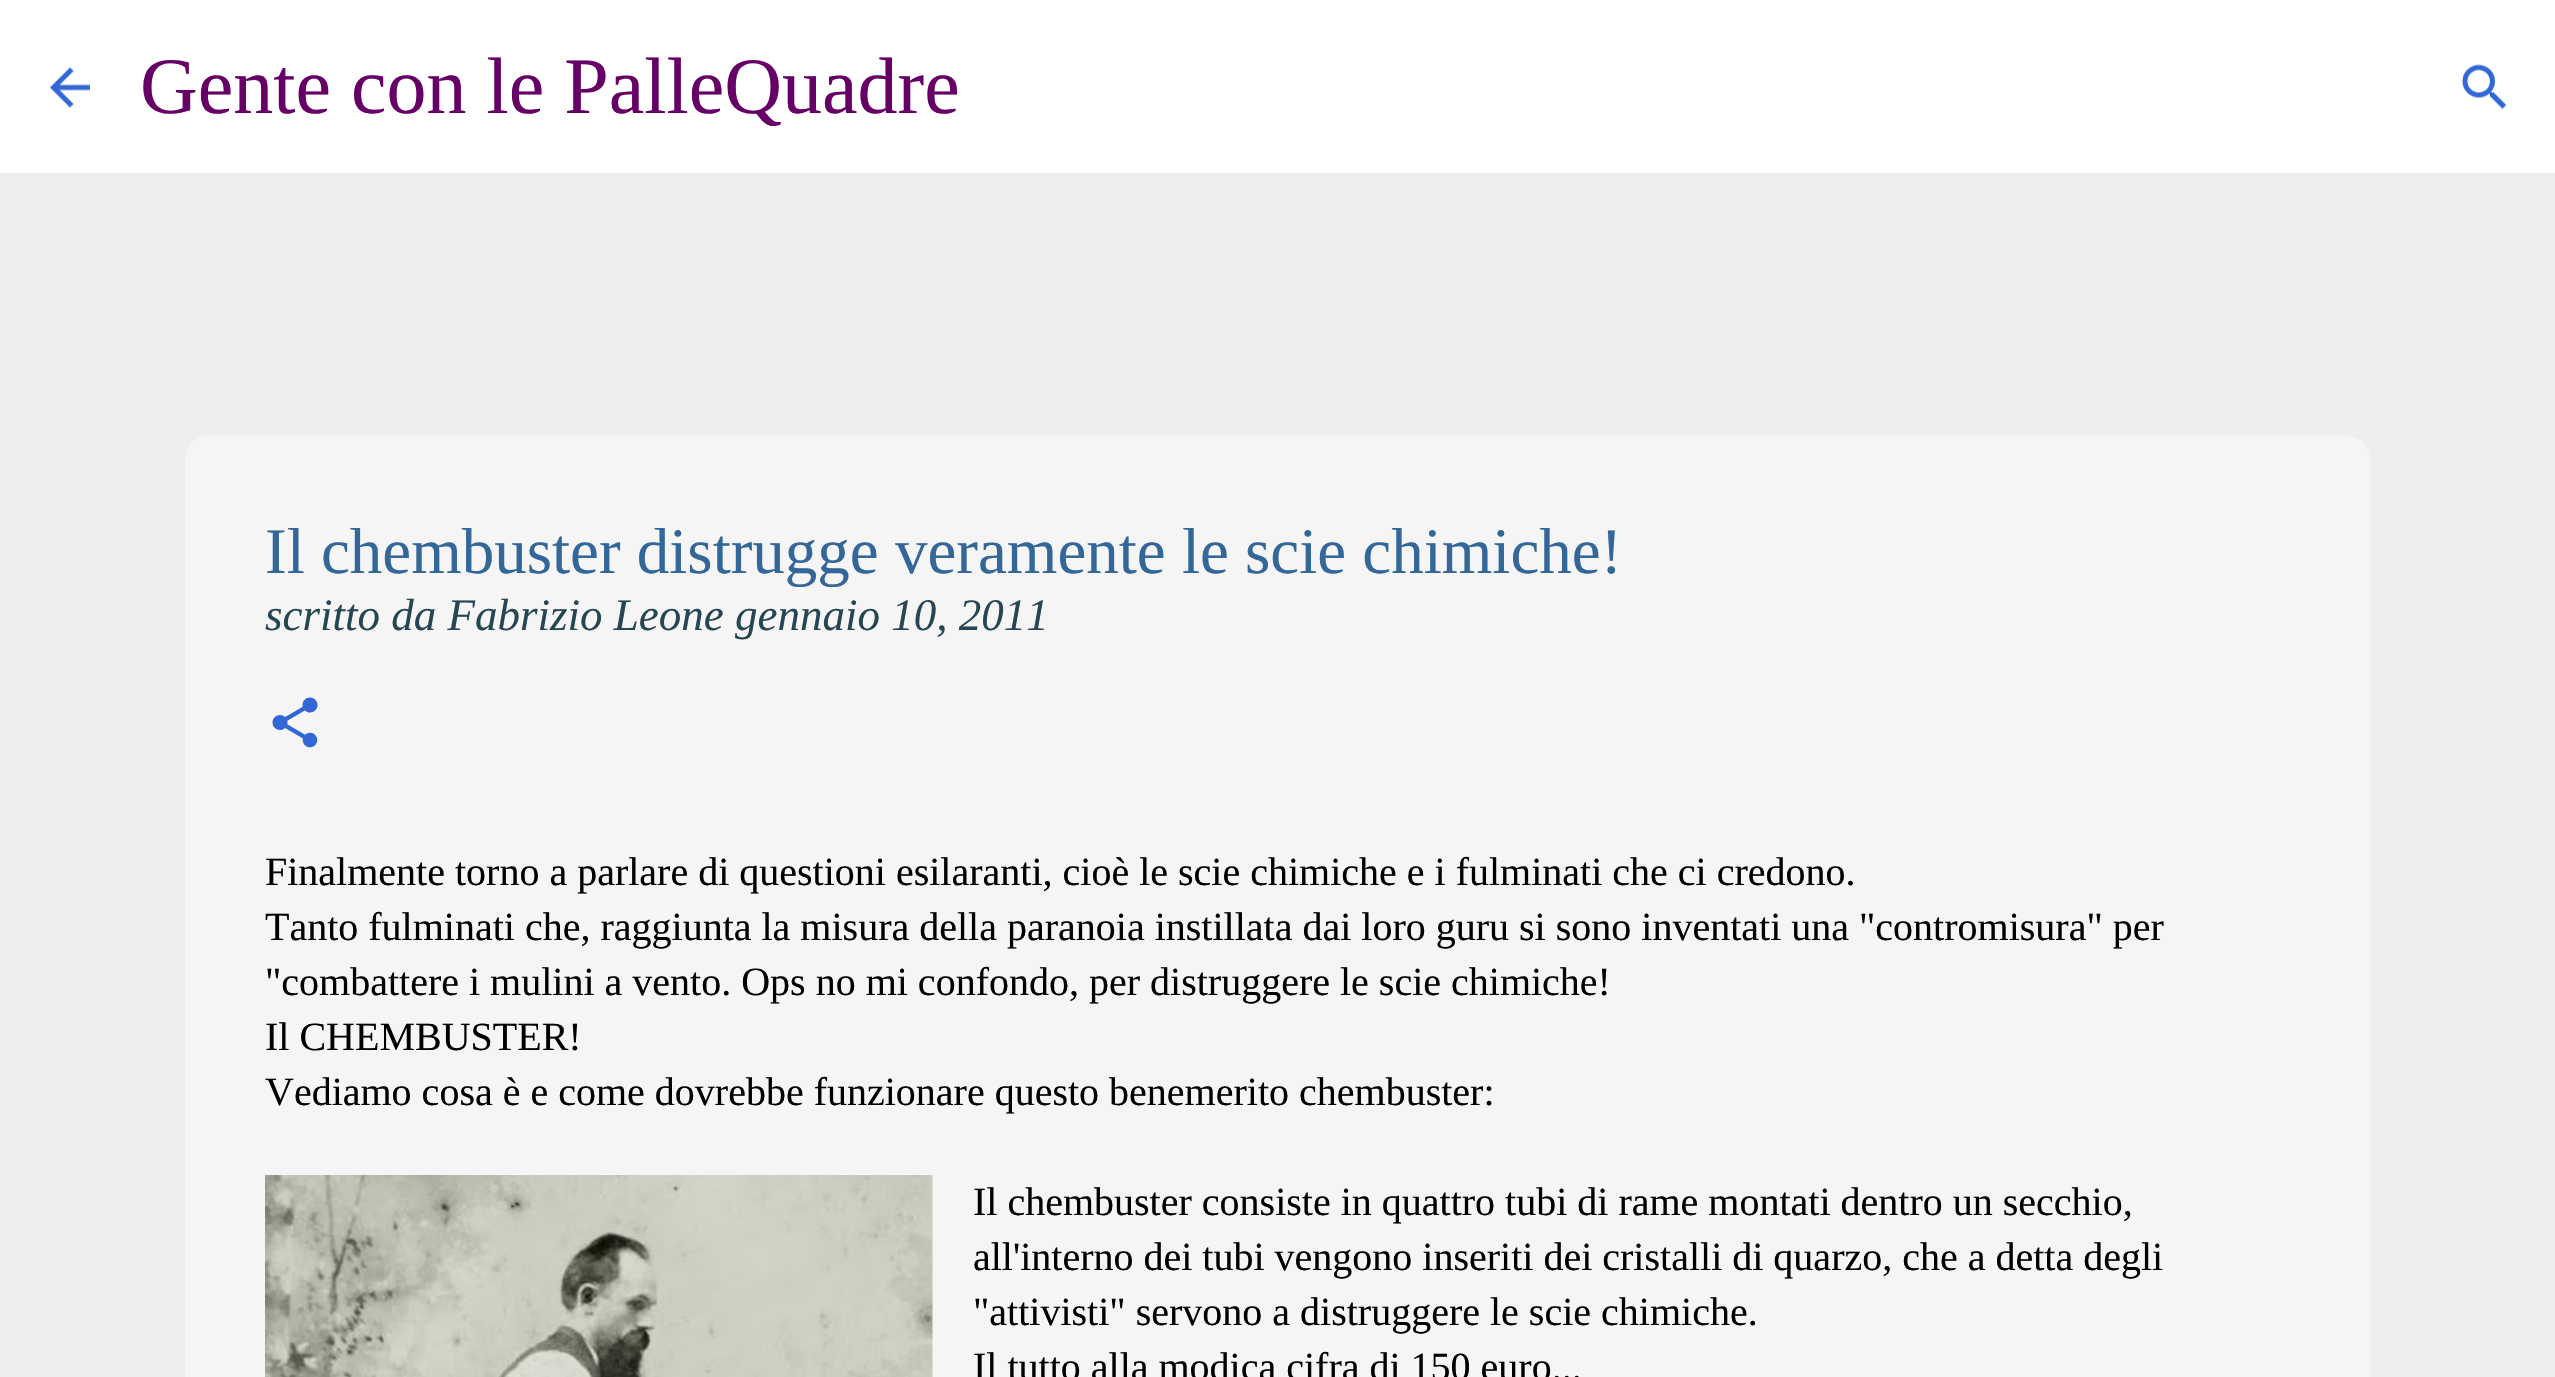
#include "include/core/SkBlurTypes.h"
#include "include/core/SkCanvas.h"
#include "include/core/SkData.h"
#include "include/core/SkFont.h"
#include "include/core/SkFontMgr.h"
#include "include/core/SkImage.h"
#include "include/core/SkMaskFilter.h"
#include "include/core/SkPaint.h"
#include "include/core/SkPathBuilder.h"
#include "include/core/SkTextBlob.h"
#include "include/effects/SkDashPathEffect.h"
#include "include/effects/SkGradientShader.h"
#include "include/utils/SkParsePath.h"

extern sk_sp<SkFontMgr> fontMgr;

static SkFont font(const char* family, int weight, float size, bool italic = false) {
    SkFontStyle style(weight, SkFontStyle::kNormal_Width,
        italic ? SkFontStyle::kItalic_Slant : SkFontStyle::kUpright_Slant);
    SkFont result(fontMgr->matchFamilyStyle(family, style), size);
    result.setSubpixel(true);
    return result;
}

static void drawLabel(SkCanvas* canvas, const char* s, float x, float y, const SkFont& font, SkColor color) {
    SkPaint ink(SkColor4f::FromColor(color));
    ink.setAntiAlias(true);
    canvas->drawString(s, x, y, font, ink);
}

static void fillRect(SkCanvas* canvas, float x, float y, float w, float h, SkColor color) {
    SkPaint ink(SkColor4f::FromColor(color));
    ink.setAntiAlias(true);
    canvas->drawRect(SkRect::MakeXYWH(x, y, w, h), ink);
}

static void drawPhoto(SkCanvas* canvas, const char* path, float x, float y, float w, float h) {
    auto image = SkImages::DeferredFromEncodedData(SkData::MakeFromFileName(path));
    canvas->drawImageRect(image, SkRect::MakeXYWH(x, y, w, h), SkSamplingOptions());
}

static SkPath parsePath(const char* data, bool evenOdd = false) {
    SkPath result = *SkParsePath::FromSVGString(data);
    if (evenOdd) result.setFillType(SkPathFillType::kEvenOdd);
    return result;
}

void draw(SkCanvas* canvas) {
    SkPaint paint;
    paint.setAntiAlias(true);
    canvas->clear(0xFFEEEEEE);
    fillRect(canvas, 0, 0, 2555, 173, 0xFFFFFFFF);
    drawPhoto(canvas, "assets/img1.png", 50, 67, 40, 41);
    SkFont font1 = font("Liberation Serif", 400, 80);
    drawLabel(canvas, "Gente con le PalleQuadre", 140, 113, font1, 0xFF660066);
    drawPhoto(canvas, "assets/img2.png", 2462, 64, 44, 46);
    paint.setColor(0xFFF5F5F5);
    canvas->drawPath(parsePath("M210 435H2345C2359 435 2370 446 2370 460V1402H185V460C185 446 196 435 210 435Z"), paint);
    SkFont font2 = font("Liberation Serif", 400, 65);
    drawLabel(canvas, "Il chembuster distrugge veramente le scie chimiche!", 265, 573, font2, 0xFF336699);
    SkFont font3 = font("Liberation Serif", 400, 45, true);
    drawLabel(canvas, "scritto da Fabrizio Leone gennaio 10, 2011", 265, 630, font3, 0xFF264653);
    drawPhoto(canvas, "assets/img3.png", 272, 697, 46, 51);
    SkFont font4 = font("Liberation Serif", 400, 40);
    drawLabel(canvas, "Finalmente torno a parlare di questioni esilaranti, cioè le scie chimiche e i fulminati che ci credono.", 265, 885, font4, 0xFF000000);
    drawLabel(canvas, "Tanto fulminati che, raggiunta la misura della paranoia instillata dai loro guru si sono inventati una \"contromisura\" per", 265, 940, font4, 0xFF000000);
    drawLabel(canvas, "\"combattere i mulini a vento. Ops no mi confondo, per distruggere le scie chimiche!", 265, 995, font4, 0xFF000000);
    drawLabel(canvas, "Il CHEMBUSTER!", 265, 1050, font4, 0xFF000000);
    drawLabel(canvas, "Vediamo cosa è e come dovrebbe funzionare questo benemerito chembuster:", 265, 1105, font4, 0xFF000000);
    drawPhoto(canvas, "assets/img4.png", 265, 1175, 668, 202);
    drawLabel(canvas, "Il chembuster consiste in quattro tubi di rame montati dentro un secchio,", 973, 1215, font4, 0xFF000000);
    drawLabel(canvas, "all'interno dei tubi vengono inseriti dei cristalli di quarzo, che a detta degli", 973, 1270, font4, 0xFF000000);
    drawLabel(canvas, "\"attivisti\" servono a distruggere le scie chimiche.", 973, 1325, font4, 0xFF000000);
    drawLabel(canvas, "Il tutto alla modica cifra di 150 euro...", 973, 1380, font4, 0xFF000000);
}
